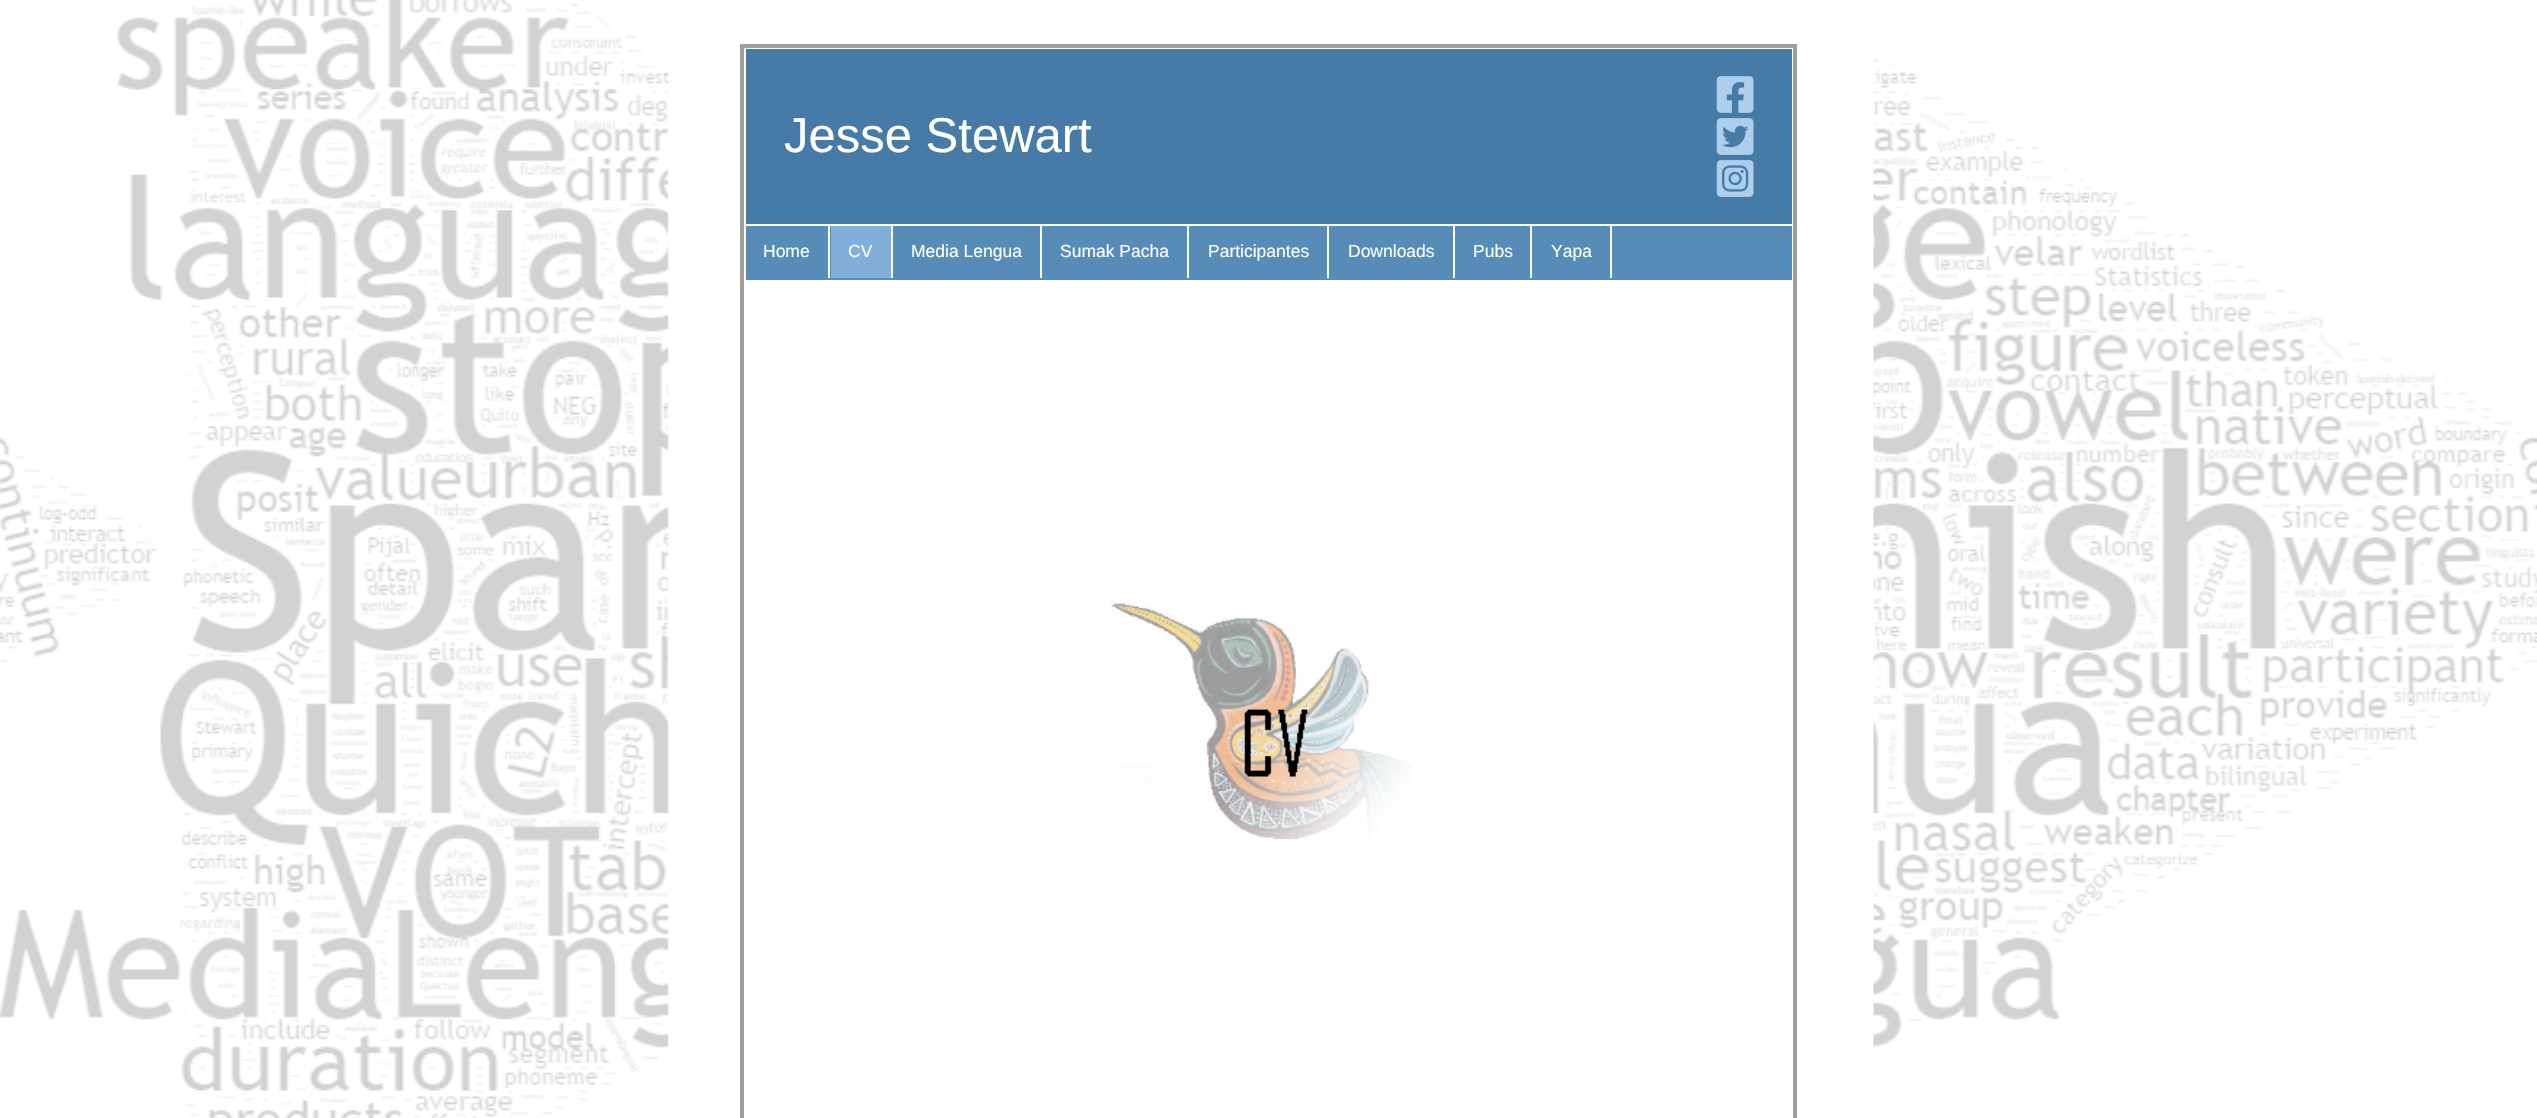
#include "include/core/SkBlurTypes.h"
#include "include/core/SkCanvas.h"
#include "include/core/SkData.h"
#include "include/core/SkFont.h"
#include "include/core/SkFontMgr.h"
#include "include/core/SkImage.h"
#include "include/core/SkMaskFilter.h"
#include "include/core/SkPaint.h"
#include "include/core/SkPathBuilder.h"
#include "include/core/SkTextBlob.h"
#include "include/effects/SkDashPathEffect.h"
#include "include/effects/SkGradientShader.h"
#include "include/utils/SkParsePath.h"

extern sk_sp<SkFontMgr> fontMgr;

static SkFont font(const char* family, int weight, float size, bool italic = false) {
    SkFontStyle style(weight, SkFontStyle::kNormal_Width,
        italic ? SkFontStyle::kItalic_Slant : SkFontStyle::kUpright_Slant);
    SkFont result(fontMgr->matchFamilyStyle(family, style), size);
    result.setSubpixel(true);
    return result;
}

static void drawLabel(SkCanvas* canvas, const char* s, float x, float y, const SkFont& font, SkColor color) {
    SkPaint ink(SkColor4f::FromColor(color));
    ink.setAntiAlias(true);
    canvas->drawString(s, x, y, font, ink);
}

static void fillRect(SkCanvas* canvas, float x, float y, float w, float h, SkColor color) {
    SkPaint ink(SkColor4f::FromColor(color));
    ink.setAntiAlias(true);
    canvas->drawRect(SkRect::MakeXYWH(x, y, w, h), ink);
}

static void drawPhoto(SkCanvas* canvas, const char* path, float x, float y, float w, float h) {
    auto image = SkImages::DeferredFromEncodedData(SkData::MakeFromFileName(path));
    canvas->drawImageRect(image, SkRect::MakeXYWH(x, y, w, h), SkSamplingOptions());
}

void draw(SkCanvas* canvas) {
    SkPaint paint;
    paint.setAntiAlias(true);
    canvas->clear(0xFFFFFFFF);
    drawPhoto(canvas, "assets/img1.png", 0, 0, 2537, 1118);
    paint.setStroke(true);
    paint.setStrokeWidth(4);
    paint.setColor(0xFFA0A0A0);
    canvas->drawRect(SkRect::MakeXYWH(742, 46, 1053, 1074), paint);
    fillRect(canvas, 746, 49, 1046, 175, 0xFF467AA7);
    SkFont font1 = font("Liberation Sans", 400, 49);
    drawLabel(canvas, "Jesse Stewart", 784, 152, font1, 0xFFFFFEFE);
    drawPhoto(canvas, "assets/img2.png", 1716, 76, 38, 37);
    drawPhoto(canvas, "assets/img3.png", 1716, 118, 38, 37);
    drawPhoto(canvas, "assets/img4.png", 1716, 160, 38, 37);
    fillRect(canvas, 746, 226, 1046, 54, 0xFF578BB8);
    fillRect(canvas, 828, 226, 2, 52, 0xFFFFFFFF);
    SkFont font2 = font("Liberation Sans", 400, 17.5f);
    drawLabel(canvas, "Home", 763, 257, font2, 0xFFFFFEFE);
    fillRect(canvas, 831, 226, 60, 52, 0xFF80B0DA);
    fillRect(canvas, 891, 226, 2, 52, 0xFFFFFFFF);
    drawLabel(canvas, "CV", 848, 257, font2, 0xFFFFFEFE);
    fillRect(canvas, 1040, 226, 2, 52, 0xFFFFFFFF);
    drawLabel(canvas, "Media Lengua", 911, 257, font2, 0xFFFFFEFE);
    fillRect(canvas, 1187, 226, 2, 52, 0xFFFFFFFF);
    drawLabel(canvas, "Sumak Pacha", 1060, 257, font2, 0xFFFFFEFE);
    fillRect(canvas, 1327, 226, 2, 52, 0xFFFFFFFF);
    drawLabel(canvas, "Participantes", 1208, 257, font2, 0xFFFFFEFE);
    fillRect(canvas, 1453, 226, 2, 52, 0xFFFFFFFF);
    drawLabel(canvas, "Downloads", 1348, 257, font2, 0xFFFFFEFE);
    fillRect(canvas, 1530, 226, 2, 52, 0xFFFFFFFF);
    drawLabel(canvas, "Pubs", 1473, 257, font2, 0xFFFFFEFE);
    fillRect(canvas, 1610, 226, 2, 52, 0xFFFFFFFF);
    drawLabel(canvas, "Yapa", 1551, 257, font2, 0xFFFFFEFE);
    drawPhoto(canvas, "assets/img5.png", 1111, 603, 303, 237);
}
